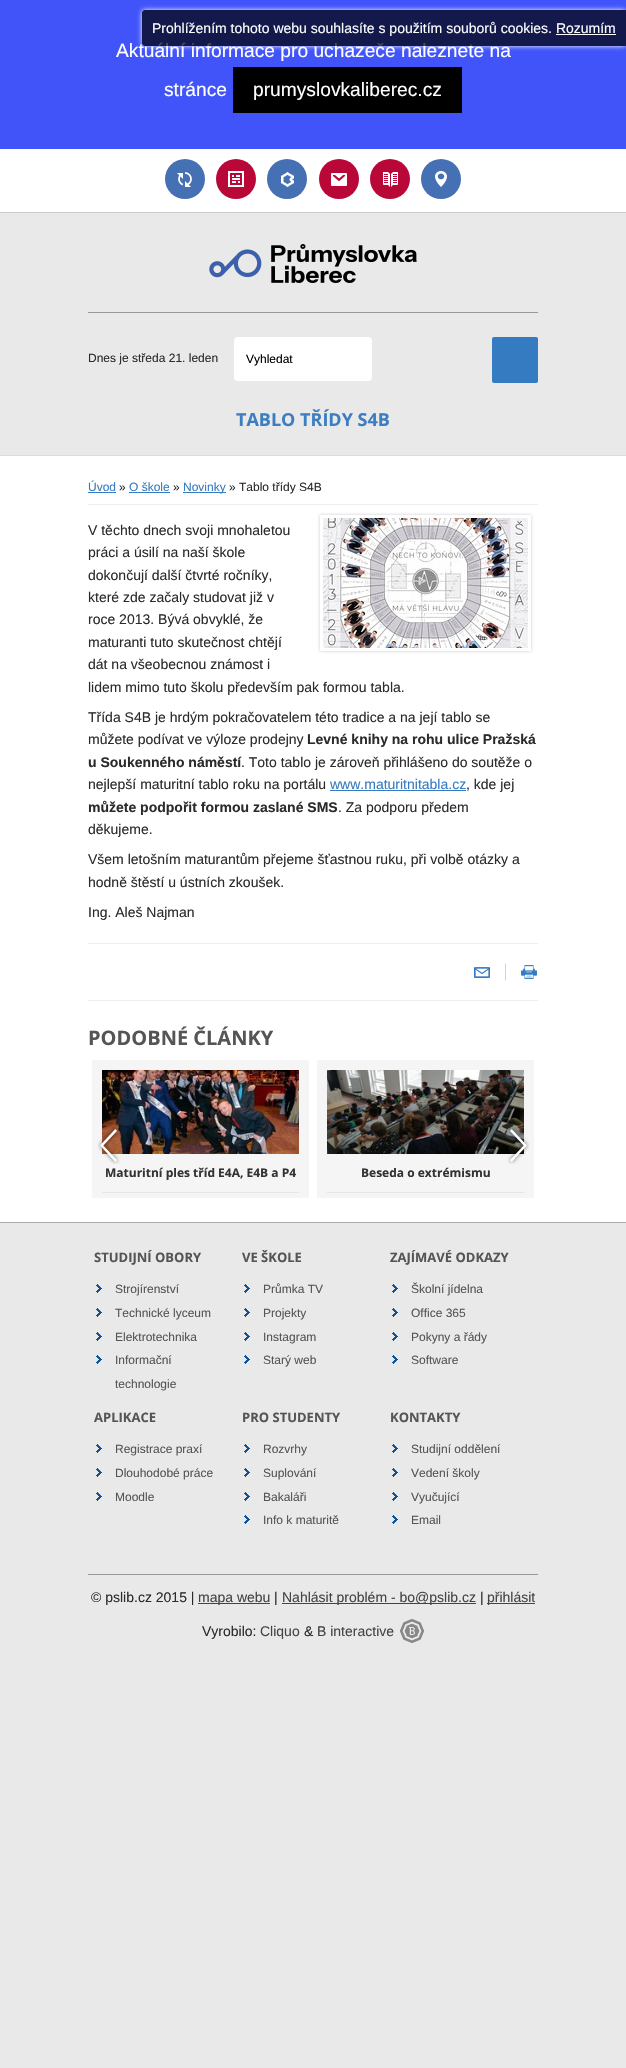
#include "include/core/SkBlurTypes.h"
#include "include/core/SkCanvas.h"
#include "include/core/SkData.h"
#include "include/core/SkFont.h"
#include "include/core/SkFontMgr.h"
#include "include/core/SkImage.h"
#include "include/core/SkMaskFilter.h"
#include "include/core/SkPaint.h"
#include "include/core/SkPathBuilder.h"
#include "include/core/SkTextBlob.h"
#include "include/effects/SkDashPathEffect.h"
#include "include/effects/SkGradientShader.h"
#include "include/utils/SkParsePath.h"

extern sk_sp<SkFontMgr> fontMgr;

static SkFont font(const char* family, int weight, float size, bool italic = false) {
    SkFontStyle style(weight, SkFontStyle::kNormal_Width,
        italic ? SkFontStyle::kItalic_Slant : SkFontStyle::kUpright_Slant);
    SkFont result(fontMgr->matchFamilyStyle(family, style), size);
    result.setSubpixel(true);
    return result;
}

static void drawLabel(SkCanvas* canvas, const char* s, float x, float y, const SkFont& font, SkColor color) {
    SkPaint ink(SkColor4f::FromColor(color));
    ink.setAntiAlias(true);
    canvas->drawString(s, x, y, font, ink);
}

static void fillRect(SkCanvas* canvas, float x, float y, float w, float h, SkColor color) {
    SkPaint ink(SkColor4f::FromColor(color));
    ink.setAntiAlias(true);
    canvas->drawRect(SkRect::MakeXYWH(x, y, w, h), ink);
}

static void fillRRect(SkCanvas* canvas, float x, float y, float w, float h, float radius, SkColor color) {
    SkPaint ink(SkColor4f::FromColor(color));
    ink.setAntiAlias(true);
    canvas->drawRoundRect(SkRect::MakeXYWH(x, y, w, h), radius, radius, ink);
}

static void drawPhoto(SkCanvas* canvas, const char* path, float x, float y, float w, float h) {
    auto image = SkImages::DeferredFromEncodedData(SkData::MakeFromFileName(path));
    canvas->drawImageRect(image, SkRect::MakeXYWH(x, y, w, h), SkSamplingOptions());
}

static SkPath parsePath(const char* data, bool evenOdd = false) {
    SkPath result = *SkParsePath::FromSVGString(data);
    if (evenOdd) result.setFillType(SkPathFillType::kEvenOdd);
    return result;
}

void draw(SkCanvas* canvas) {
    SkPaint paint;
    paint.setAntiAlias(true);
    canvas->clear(0xFFE9E9E9);
    fillRect(canvas, 0, 0, 626, 149, 0xFF4154FA);
    canvas->save();
    canvas->clipPath(parsePath("M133 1H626V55H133ZM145 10H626V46H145C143.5 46 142 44.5 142 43V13C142 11.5 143.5 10 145 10Z", true), true);
    paint.setColor(0xFFFFFFFF);
    paint.setMaskFilter(SkMaskFilter::MakeBlur(kNormal_SkBlurStyle, 2.5f));
    canvas->drawRoundRect(SkRect::MakeXYWH(142, 10, 484, 36), 3, 3, paint);
    paint.setMaskFilter(nullptr);
    canvas->restore();
    SkFont font1 = font("Liberation Sans", 400, 19.2f);
    drawLabel(canvas, "Aktuální informace pro uchazeče naleznete na", 116, 57, font1, 0xFFFFFFFF);
    paint.setColor(0xB3000000);
    canvas->drawPath(parsePath("M145 10H626V46H145C143.5 46 142 44.5 142 43V13C142 11.5 143.5 10 145 10Z"), paint);
    SkFont font2 = font("Liberation Sans", 400, 14);
    drawLabel(canvas, "Prohlížením tohoto webu souhlasíte s použitím souborů cookies. Rozumím", 152, 33, font2, 0xFFFFFFFF);
    fillRect(canvas, 556, 34, 60, 1, 0xFFFFFFFF);
    fillRect(canvas, 0, 455, 626, 1, 0xFFDDDDDD);
    drawLabel(canvas, "stránce", 164, 96, font1, 0xFFFFFFFF);
    fillRect(canvas, 233, 67, 229, 46, 0xFF000000);
    drawLabel(canvas, "prumyslovkaliberec.cz", 253, 96, font1, 0xFFFFFFFF);
    fillRect(canvas, 0, 149, 626, 63, 0xFFFFFFFF);
    fillRect(canvas, 0, 212, 626, 1, 0xFFCCCCCC);
    paint.setColor(0xFF4570B4);
    canvas->drawCircle(185, 179, 20, paint);
    drawPhoto(canvas, "assets/img1.png", 177, 172, 15, 15);
    paint.setColor(0xFFB90737);
    canvas->drawCircle(236, 179, 20, paint);
    drawPhoto(canvas, "assets/img2.png", 228, 171, 16, 16);
    paint.setColor(0xFF4570B4);
    canvas->drawCircle(287, 179, 20, paint);
    drawPhoto(canvas, "assets/img3.png", 281, 172, 13, 15);
    paint.setColor(0xFFB90737);
    canvas->drawCircle(339, 179, 20, paint);
    drawPhoto(canvas, "assets/img4.png", 331, 173, 16, 13);
    canvas->drawCircle(390, 179, 20, paint);
    drawPhoto(canvas, "assets/img5.png", 383, 172, 15, 15);
    paint.setColor(0xFF4570B4);
    canvas->drawCircle(441, 179, 20, paint);
    drawPhoto(canvas, "assets/img6.png", 435, 171, 12, 16);
    fillRect(canvas, 88, 312, 450, 1, 0xFF999999);
    drawPhoto(canvas, "assets/img7.png", 209, 244, 208, 39);
    SkFont font3 = font("Liberation Sans", 400, 12);
    drawLabel(canvas, "Dnes je středa 21. leden", 88, 362, font3, 0xFF2B2B2B);
    fillRRect(canvas, 234, 337, 138, 44, 4, 0xFFFFFFFF);
    drawLabel(canvas, "Vyhledat", 246, 363, font3, 0xFF000000);
    fillRRect(canvas, 492, 337, 46, 46, 2, 0xFF357BC2);
    SkFont font4 = font("Open Sans", 700, 18);
    drawLabel(canvas, "TABLO TŘÍDY S4B", 236, 426, font4, 0xFF3C7EC1);
    fillRect(canvas, 0, 456, 626, 766, 0xFFFFFFFF);
    fillRect(canvas, 0, 1222, 626, 1, 0xFFAAAAAA);
    fillRect(canvas, 88, 504, 450, 1, 0xFFEEEEEE);
    drawLabel(canvas, "Úvod", 88, 491, font3, 0xFF357BC2);
    fillRect(canvas, 88, 492, 28, 1, 0xFF357BC2);
    drawLabel(canvas, "»", 119, 491, font3, 0xFF2B2B2B);
    drawLabel(canvas, "O škole", 129, 491, font3, 0xFF357BC2);
    fillRect(canvas, 129, 492, 41, 1, 0xFF357BC2);
    drawLabel(canvas, "»", 173, 491, font3, 0xFF2B2B2B);
    fillRect(canvas, 183, 492, 43, 1, 0xFF357BC2);
    drawLabel(canvas, "Novinky", 183, 491, font3, 0xFF357BC2);
    drawLabel(canvas, "» Tablo třídy S4B", 229, 491, font3, 0xFF2B2B2B);
    drawLabel(canvas, "V těchto dnech svoji mnohaletou", 88, 535, font2, 0xFF2B2B2B);
    drawLabel(canvas, "práci a úsilí na naší škole", 88, 557, font2, 0xFF2B2B2B);
    drawLabel(canvas, "dokončují další čtvrté ročníky,", 88, 580, font2, 0xFF2B2B2B);
    drawLabel(canvas, "které zde začaly studovat již v", 88, 602, font2, 0xFF2B2B2B);
    drawLabel(canvas, "roce 2013. Bývá obvyklé, že", 88, 624, font2, 0xFF2B2B2B);
    drawLabel(canvas, "maturanti tuto skutečnost chtějí", 88, 647, font2, 0xFF2B2B2B);
    drawLabel(canvas, "dát na všeobecnou známost i", 88, 669, font2, 0xFF2B2B2B);
    drawLabel(canvas, "lidem mimo tuto školu především pak formou tabla.", 88, 692, font2, 0xFF2B2B2B);
    canvas->save();
    canvas->clipPath(parsePath("M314 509H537V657H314ZM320 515H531V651H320Z", true), true);
    paint.setColor(0xFFCCCCCC);
    paint.setMaskFilter(SkMaskFilter::MakeBlur(kNormal_SkBlurStyle, 1.5f));
    canvas->drawRect(SkRect::MakeXYWH(320, 515, 211, 136), paint);
    paint.setMaskFilter(nullptr);
    canvas->restore();
    drawPhoto(canvas, "assets/img8.png", 323, 518, 205, 130);
    drawLabel(canvas, "Třída S4B je hrdým pokračovatelem této tradice a na její tablo se", 88, 722, font2, 0xFF2B2B2B);
    drawLabel(canvas, "můžete podívat ve výloze prodejny", 88, 744, font2, 0xFF2B2B2B);
    SkFont font5 = font("Liberation Sans", 700, 14);
    drawLabel(canvas, "Levné knihy na rohu ulice Pražská", 307, 744, font5, 0xFF2B2B2B);
    drawLabel(canvas, "u Soukenného náměstí", 88, 767, font5, 0xFF2B2B2B);
    drawLabel(canvas, ". Toto tablo je zároveň přihlášeno do soutěže o", 241, 767, font2, 0xFF2B2B2B);
    drawLabel(canvas, "nejlepší maturitní tablo roku na portálu", 88, 789, font2, 0xFF2B2B2B);
    drawLabel(canvas, "www.maturitnitabla.cz", 330, 789, font2, 0xFF357BC2);
    fillRect(canvas, 330, 790, 136, 1, 0xFF357BC2);
    drawLabel(canvas, ", kde jej", 466, 789, font2, 0xFF2B2B2B);
    drawLabel(canvas, "můžete podpořit formou zaslané SMS", 88, 812, font5, 0xFF2B2B2B);
    drawLabel(canvas, ". Za podporu předem", 338, 812, font2, 0xFF2B2B2B);
    drawLabel(canvas, "děkujeme.", 88, 834, font2, 0xFF2B2B2B);
    drawLabel(canvas, "Všem letošním maturantům přejeme šťastnou ruku, při volbě otázky a", 88, 864, font2, 0xFF2B2B2B);
    drawLabel(canvas, "hodně štěstí u ústních zkoušek.", 88, 887, font2, 0xFF2B2B2B);
    drawLabel(canvas, "Ing. Aleš Najman", 88, 917, font2, 0xFF2B2B2B);
    fillRect(canvas, 88, 943, 450, 1, 0xFFEEEEEE);
    fillRect(canvas, 88, 1000, 450, 1, 0xFFEEEEEE);
    drawPhoto(canvas, "assets/img9.png", 474, 967, 16, 11);
    drawPhoto(canvas, "assets/img10.png", 505, 963, 1, 18);
    drawPhoto(canvas, "assets/img11.png", 521, 965, 16, 14);
    SkFont font6 = font("Open Sans", 700, 20);
    drawLabel(canvas, "PODOBNÉ ČLÁNKY", 88, 1045, font6, 0xFF555555);
    fillRect(canvas, 92, 1060, 217, 138, 0xFFF5F5F5);
    drawPhoto(canvas, "assets/img14.png", 102, 1070, 197, 84);
    drawPhoto(canvas, "assets/img12.png", 97, 1127, 23, 37);
    fillRect(canvas, 317, 1060, 217, 138, 0xFFF5F5F5);
    drawPhoto(canvas, "assets/img15.png", 327, 1070, 197, 84);
    drawPhoto(canvas, "assets/img13.png", 507, 1127, 23, 37);
    SkFont font7 = font("Open Sans", 700, 12);
    drawLabel(canvas, "Maturitní ples tříd E4A, E4B a P4", 105, 1177, font7, 0xFF333333);
    fillRect(canvas, 102, 1192, 197, 1, 0xFFE6E6E6);
    drawLabel(canvas, "Beseda o extrémismu", 361, 1177, font7, 0xFF333333);
    fillRect(canvas, 327, 1192, 197, 1, 0xFFE6E6E6);
    SkFont font8 = font("Open Sans", 700, 13);
    drawLabel(canvas, "STUDIJNÍ OBORY", 94, 1262, font8, 0xFF555555);
    drawPhoto(canvas, "assets/img16.png", 96, 1284, 6, 9);
    drawLabel(canvas, "Strojírenství", 115, 1293, font3, 0xFF555555);
    drawPhoto(canvas, "assets/img16.png", 96, 1308, 6, 9);
    drawLabel(canvas, "Technické lyceum", 115, 1317, font3, 0xFF555555);
    drawPhoto(canvas, "assets/img16.png", 96, 1332, 6, 9);
    drawLabel(canvas, "Elektrotechnika", 115, 1341, font3, 0xFF555555);
    drawPhoto(canvas, "assets/img16.png", 96, 1355, 6, 9);
    drawLabel(canvas, "Informační", 115, 1364, font3, 0xFF555555);
    drawLabel(canvas, "technologie", 115, 1388, font3, 0xFF555555);
    drawLabel(canvas, "VE ŠKOLE", 242, 1262, font8, 0xFF555555);
    drawPhoto(canvas, "assets/img16.png", 244, 1284, 6, 9);
    drawLabel(canvas, "Průmka TV", 263, 1293, font3, 0xFF555555);
    drawPhoto(canvas, "assets/img16.png", 244, 1308, 6, 9);
    drawLabel(canvas, "Projekty", 263, 1317, font3, 0xFF555555);
    drawPhoto(canvas, "assets/img16.png", 244, 1332, 6, 9);
    drawLabel(canvas, "Instagram", 263, 1341, font3, 0xFF555555);
    drawPhoto(canvas, "assets/img16.png", 244, 1355, 6, 9);
    drawLabel(canvas, "Starý web", 263, 1364, font3, 0xFF555555);
    drawLabel(canvas, "ZAJÍMAVÉ ODKAZY", 390, 1262, font8, 0xFF555555);
    drawPhoto(canvas, "assets/img16.png", 392, 1284, 6, 9);
    drawLabel(canvas, "Školní jídelna", 411, 1293, font3, 0xFF555555);
    drawPhoto(canvas, "assets/img16.png", 392, 1308, 6, 9);
    drawLabel(canvas, "Office 365", 411, 1317, font3, 0xFF555555);
    drawPhoto(canvas, "assets/img16.png", 392, 1332, 6, 9);
    drawLabel(canvas, "Pokyny a řády", 411, 1341, font3, 0xFF555555);
    drawPhoto(canvas, "assets/img16.png", 392, 1355, 6, 9);
    drawLabel(canvas, "Software", 411, 1364, font3, 0xFF555555);
    drawLabel(canvas, "APLIKACE", 94, 1422, font8, 0xFF555555);
    drawPhoto(canvas, "assets/img16.png", 96, 1444, 6, 9);
    drawLabel(canvas, "Registrace praxí", 115, 1453, font3, 0xFF555555);
    drawPhoto(canvas, "assets/img16.png", 96, 1468, 6, 9);
    drawLabel(canvas, "Dlouhodobé práce", 115, 1477, font3, 0xFF555555);
    drawPhoto(canvas, "assets/img16.png", 96, 1492, 6, 9);
    drawLabel(canvas, "Moodle", 115, 1501, font3, 0xFF555555);
    drawLabel(canvas, "PRO STUDENTY", 242, 1422, font8, 0xFF555555);
    drawPhoto(canvas, "assets/img16.png", 244, 1444, 6, 9);
    drawLabel(canvas, "Rozvrhy", 263, 1453, font3, 0xFF555555);
    drawPhoto(canvas, "assets/img16.png", 244, 1468, 6, 9);
    drawLabel(canvas, "Suplování", 263, 1477, font3, 0xFF555555);
    drawPhoto(canvas, "assets/img16.png", 244, 1492, 6, 9);
    drawLabel(canvas, "Bakaláři", 263, 1501, font3, 0xFF555555);
    drawPhoto(canvas, "assets/img16.png", 244, 1515, 6, 9);
    drawLabel(canvas, "Info k maturitě", 263, 1524, font3, 0xFF555555);
    drawLabel(canvas, "KONTAKTY", 390, 1422, font8, 0xFF555555);
    drawPhoto(canvas, "assets/img16.png", 392, 1444, 6, 9);
    drawLabel(canvas, "Studijní oddělení", 411, 1453, font3, 0xFF555555);
    drawPhoto(canvas, "assets/img16.png", 392, 1468, 6, 9);
    drawLabel(canvas, "Vedení školy", 411, 1477, font3, 0xFF555555);
    drawPhoto(canvas, "assets/img16.png", 392, 1492, 6, 9);
    drawLabel(canvas, "Vyučující", 411, 1501, font3, 0xFF555555);
    drawPhoto(canvas, "assets/img16.png", 392, 1515, 6, 9);
    drawLabel(canvas, "Email", 411, 1524, font3, 0xFF555555);
    fillRect(canvas, 88, 1574, 450, 1, 0xFF999999);
    drawLabel(canvas, "© pslib.cz 2015 |", 91, 1602, font2, 0xFF2B2B2B);
    fillRect(canvas, 198, 1603, 72, 1, 0xFF444444);
    drawLabel(canvas, "mapa webu", 198, 1602, font2, 0xFF444444);
    drawLabel(canvas, "|", 274, 1602, font2, 0xFF2B2B2B);
    fillRect(canvas, 282, 1603, 194, 1, 0xFF444444);
    drawLabel(canvas, "Nahlásit problém - bo@pslib.cz", 282, 1602, font2, 0xFF444444);
    drawLabel(canvas, "|", 480, 1602, font2, 0xFF2B2B2B);
    fillRect(canvas, 487, 1603, 48, 1, 0xFF444444);
    drawLabel(canvas, "přihlásit", 487, 1602, font2, 0xFF444444);
    drawLabel(canvas, "Vyrobilo:", 202, 1636, font2, 0xFF2B2B2B);
    drawLabel(canvas, "Cliquo", 260, 1636, font2, 0xFF444444);
    drawLabel(canvas, "&", 304, 1636, font2, 0xFF2B2B2B);
    drawPhoto(canvas, "assets/img17.png", 400, 1619, 24, 24);
    drawLabel(canvas, "B interactive", 317, 1636, font2, 0xFF444444);
}
